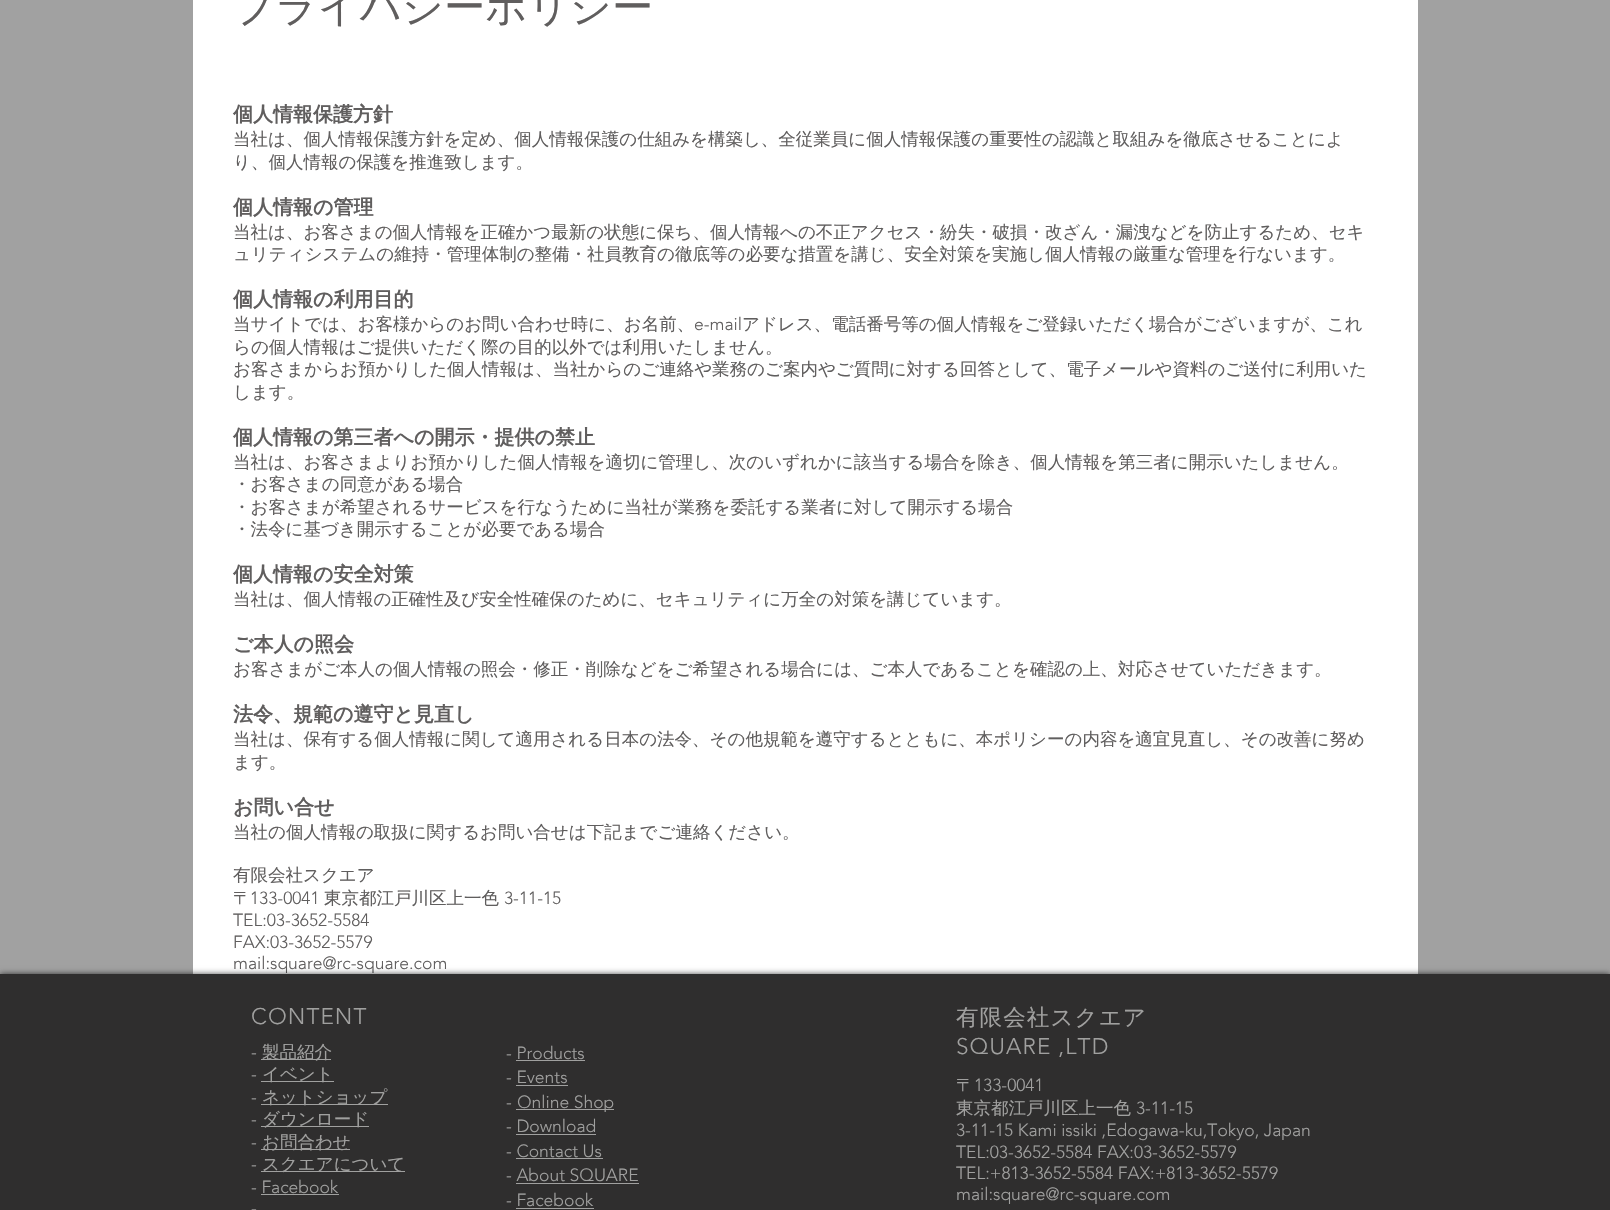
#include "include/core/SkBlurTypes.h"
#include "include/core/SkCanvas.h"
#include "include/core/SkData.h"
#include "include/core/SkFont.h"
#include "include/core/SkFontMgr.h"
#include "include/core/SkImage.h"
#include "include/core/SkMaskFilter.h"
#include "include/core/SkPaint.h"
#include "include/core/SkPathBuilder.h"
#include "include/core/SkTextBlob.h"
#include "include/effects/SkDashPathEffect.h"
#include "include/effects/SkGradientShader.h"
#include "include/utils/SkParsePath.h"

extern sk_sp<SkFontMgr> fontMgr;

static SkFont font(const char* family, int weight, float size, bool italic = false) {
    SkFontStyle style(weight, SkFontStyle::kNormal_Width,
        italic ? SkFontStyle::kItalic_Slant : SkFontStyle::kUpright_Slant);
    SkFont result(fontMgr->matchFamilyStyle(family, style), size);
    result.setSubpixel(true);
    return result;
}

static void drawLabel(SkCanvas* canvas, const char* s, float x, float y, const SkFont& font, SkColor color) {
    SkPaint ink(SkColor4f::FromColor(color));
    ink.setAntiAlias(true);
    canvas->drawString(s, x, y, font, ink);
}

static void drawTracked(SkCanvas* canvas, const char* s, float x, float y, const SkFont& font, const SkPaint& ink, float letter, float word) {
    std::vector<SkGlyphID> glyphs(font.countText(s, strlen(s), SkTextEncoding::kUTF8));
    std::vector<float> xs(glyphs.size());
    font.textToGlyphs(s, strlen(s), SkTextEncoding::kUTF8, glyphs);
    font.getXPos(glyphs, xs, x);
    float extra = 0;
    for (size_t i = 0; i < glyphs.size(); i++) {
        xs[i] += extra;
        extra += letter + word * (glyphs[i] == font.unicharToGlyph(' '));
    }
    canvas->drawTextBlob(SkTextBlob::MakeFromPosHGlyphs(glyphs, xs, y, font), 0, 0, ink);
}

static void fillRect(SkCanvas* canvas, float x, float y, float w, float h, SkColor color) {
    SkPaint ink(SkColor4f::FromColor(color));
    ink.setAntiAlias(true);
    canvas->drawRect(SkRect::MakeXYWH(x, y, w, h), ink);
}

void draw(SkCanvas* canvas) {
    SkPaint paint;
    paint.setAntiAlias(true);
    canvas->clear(0xFFA1A1A1);
    fillRect(canvas, 193, 0, 1225, 974, 0xFFFFFFFF);
    SkFont font1 = font("WenQuanYi Zen Hei", 500, 41.25f);
    drawLabel(canvas, "プライバシーポリシー", 233, 21, font1, 0xFF605E5E);
    SkFont font2 = font("WenQuanYi Zen Hei", 700, 20);
    drawLabel(canvas, "個人情報保護方針", 233, 121, font2, 0xFF605E5E);
    SkFont font3 = font("WenQuanYi Zen Hei", 500, 17.5f);
    drawLabel(canvas, "当社は、個人情報保護方針を定め、個人情報保護の仕組みを構築し、全従業員に個人情報保護の重要性の認識と取組みを徹底させることによ", 233, 145, font3, 0xFF605E5E);
    drawLabel(canvas, "り、個人情報の保護を推進致します。", 233, 168, font3, 0xFF605E5E);
    drawLabel(canvas, "個人情報の管理", 233, 214, font2, 0xFF605E5E);
    drawLabel(canvas, "当社は、お客さまの個人情報を正確かつ最新の状態に保ち、個人情報への不正アクセス・紛失・破損・改ざん・漏洩などを防止するため、セキ", 233, 238, font3, 0xFF605E5E);
    drawLabel(canvas, "ュリティシステムの維持・管理体制の整備・社員教育の徹底等の必要な措置を講じ、安全対策を実施し個人情報の厳重な管理を行ないます。", 233, 260, font3, 0xFF605E5E);
    drawLabel(canvas, "個人情報の利用目的", 233, 306, font2, 0xFF605E5E);
    drawLabel(canvas, "当サイトでは、お客様からのお問い合わせ時に、お名前、", 233, 330, font3, 0xFF605E5E);
    SkFont font4 = font("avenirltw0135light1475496", 300, 17.5f);
    drawLabel(canvas, "e-mail", 694, 330, font4, 0xFF605E5E);
    drawLabel(canvas, "アドレス、電話番号等の個人情報をご登録いただく場合がございますが、これ", 742, 330, font3, 0xFF605E5E);
    drawLabel(canvas, "らの個人情報はご提供いただく際の目的以外では利用いたしません。", 233, 353, font3, 0xFF605E5E);
    drawLabel(canvas, "お客さまからお預かりした個人情報は、当社からのご連絡や業務のご案内やご質問に対する回答として、電子メールや資料のご送付に利用いた", 233, 375, font3, 0xFF605E5E);
    drawLabel(canvas, "します。", 233, 398, font3, 0xFF605E5E);
    drawLabel(canvas, "個人情報の第三者への開示・提供の禁止", 233, 444, font2, 0xFF605E5E);
    drawLabel(canvas, "当社は、お客さまよりお預かりした個人情報を適切に管理し、次のいずれかに該当する場合を除き、個人情報を第三者に開示いたしません。", 233, 468, font3, 0xFF605E5E);
    drawLabel(canvas, "・お客さまの同意がある場合", 233, 490, font3, 0xFF605E5E);
    drawLabel(canvas, "・お客さまが希望されるサービスを行なうために当社が業務を委託する業者に対して開示する場合", 233, 513, font3, 0xFF605E5E);
    drawLabel(canvas, "・法令に基づき開示することが必要である場合", 233, 535, font3, 0xFF605E5E);
    drawLabel(canvas, "個人情報の安全対策", 233, 581, font2, 0xFF605E5E);
    drawLabel(canvas, "当社は、個人情報の正確性及び安全性確保のために、セキュリティに万全の対策を講じています。", 233, 605, font3, 0xFF605E5E);
    drawLabel(canvas, "ご本人の照会", 233, 651, font2, 0xFF605E5E);
    drawLabel(canvas, "お客さまがご本人の個人情報の照会・修正・削除などをご希望される場合には、ご本人であることを確認の上、対応させていただきます。", 233, 675, font3, 0xFF605E5E);
    drawLabel(canvas, "法令、規範の遵守と見直し", 233, 721, font2, 0xFF605E5E);
    drawLabel(canvas, "当社は、保有する個人情報に関して適用される日本の法令、その他規範を遵守するとともに、本ポリシーの内容を適宜見直し、その改善に努め", 233, 745, font3, 0xFF605E5E);
    drawLabel(canvas, "ます。", 233, 768, font3, 0xFF605E5E);
    drawLabel(canvas, "お問い合せ", 233, 814, font2, 0xFF605E5E);
    drawLabel(canvas, "当社の個人情報の取扱に関するお問い合せは下記までご連絡ください。", 233, 838, font3, 0xFF605E5E);
    drawLabel(canvas, "有限会社スクエア", 233, 881, font3, 0xFF605E5E);
    drawLabel(canvas, "〒", 233, 904, font3, 0xFF605E5E);
    drawLabel(canvas, "133-0041", 250, 904, font4, 0xFF605E5E);
    drawLabel(canvas, "東京都江戸川区上一色", 324, 904, font3, 0xFF605E5E);
    drawLabel(canvas, "3-11-15", 504, 904, font4, 0xFF605E5E);
    drawLabel(canvas, "TEL:03-3652-5584", 233, 926, font4, 0xFF605E5E);
    drawLabel(canvas, "FAX:03-3652-5579", 233, 948, font4, 0xFF605E5E);
    drawLabel(canvas, "mail:square@rc-square.com", 233, 969, font4, 0xFF605E5E);
    paint.setColor(0xB3000000);
    paint.setMaskFilter(SkMaskFilter::MakeBlur(kNormal_SkBlurStyle, 3));
    canvas->drawRect(SkRect::MakeXYWH(0, 974, 1610, 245), paint);
    paint.setMaskFilter(nullptr);
    fillRect(canvas, 0, 974, 1610, 236, 0xFF2F2E2E);
    SkFont font5 = font("avenirltw0135light1475496", 300, 22.5f);
    paint.setColor(0xFFA0A09F);
    drawTracked(canvas, "CONTENT", 251, 1024, font5, paint, 1.1f, 0);
    SkFont font6 = font("WenQuanYi Zen Hei", 500, 22.5f);
    drawTracked(canvas, "有限会社スクエア", 956, 1025, font6, paint, 1.1f, 0);
    drawTracked(canvas, "SQUARE ,LTD", 956, 1054, font5, paint, 1.1f, 0);
    drawLabel(canvas, "-", 251, 1058, font4, 0xFFA0A09F);
    fillRect(canvas, 261, 1059, 70, 1, 0xFFA0A09F);
    drawLabel(canvas, "製品紹介", 262, 1058, font3, 0xFFA0A09F);
    drawLabel(canvas, "-", 251, 1080, font4, 0xFFA0A09F);
    fillRect(canvas, 261, 1081, 73, 1, 0xFFA0A09F);
    drawLabel(canvas, "イベント", 262, 1080, font3, 0xFFA0A09F);
    drawLabel(canvas, "-", 251, 1103, font4, 0xFFA0A09F);
    fillRect(canvas, 261, 1104, 127, 1, 0xFFA0A09F);
    drawLabel(canvas, "ネットショップ", 262, 1103, font3, 0xFFA0A09F);
    drawLabel(canvas, "-", 251, 1125, font4, 0xFFA0A09F);
    fillRect(canvas, 261, 1126, 108, 1, 0xFFA0A09F);
    drawLabel(canvas, "ダウンロード", 262, 1125, font3, 0xFFA0A09F);
    drawLabel(canvas, "-", 251, 1148, font4, 0xFFA0A09F);
    fillRect(canvas, 261, 1149, 89, 1, 0xFFA0A09F);
    drawLabel(canvas, "お問合わせ", 262, 1148, font3, 0xFFA0A09F);
    drawLabel(canvas, "-", 251, 1170, font4, 0xFFA0A09F);
    fillRect(canvas, 261, 1171, 144, 1, 0xFFA0A09F);
    drawLabel(canvas, "スクエアについて", 262, 1170, font3, 0xFFA0A09F);
    drawLabel(canvas, "- Facebook", 251, 1193, font4, 0xFFA0A09F);
    fillRect(canvas, 261, 1194, 78, 1, 0xFFA0A09F);
    drawLabel(canvas, "-", 251, 1214, font4, 0xFFA0A09F);
    drawLabel(canvas, "- Products", 506, 1059, font4, 0xFFA0A09F);
    fillRect(canvas, 516, 1060, 69, 1, 0xFFA0A09F);
    drawLabel(canvas, "- Events", 506, 1083, font4, 0xFFA0A09F);
    fillRect(canvas, 516, 1085, 52, 1, 0xFFA0A09F);
    drawLabel(canvas, "-", 506, 1108, font4, 0xFFA0A09F);
    fillRect(canvas, 516, 1109, 98, 1, 0xFFA0A09F);
    drawLabel(canvas, "Online Shop", 517, 1108, font4, 0xFFA0A09F);
    drawLabel(canvas, "- Download", 506, 1132, font4, 0xFFA0A09F);
    fillRect(canvas, 516, 1134, 80, 1, 0xFFA0A09F);
    drawLabel(canvas, "- Contact Us", 506, 1157, font4, 0xFFA0A09F);
    fillRect(canvas, 516, 1158, 87, 1, 0xFFA0A09F);
    drawLabel(canvas, "- About SQUARE", 506, 1181, font4, 0xFFA0A09F);
    fillRect(canvas, 516, 1183, 123, 1, 0xFFA0A09F);
    drawLabel(canvas, "- Facebook", 506, 1206, font4, 0xFFA0A09F);
    fillRect(canvas, 516, 1208, 78, 1, 0xFFA0A09F);
    drawLabel(canvas, "〒", 956, 1091, font3, 0xFFA0A09F);
    drawLabel(canvas, "133-0041", 974, 1091, font4, 0xFFA0A09F);
    drawLabel(canvas, "東京都江戸川区上一色", 956, 1114, font3, 0xFFA0A09F);
    drawLabel(canvas, "3-11-15", 1136, 1114, font4, 0xFFA0A09F);
    drawLabel(canvas, "3-11-15 Kami issiki ,Edogawa-ku,Tokyo, Japan", 956, 1136, font4, 0xFFA0A09F);
    drawLabel(canvas, "TEL:03-3652-5584 FAX:03-3652-5579", 956, 1158, font4, 0xFFA0A09F);
    drawLabel(canvas, "TEL:+813-3652-5584 FAX:+813-3652-5579", 956, 1179, font4, 0xFFA0A09F);
    drawLabel(canvas, "mail:square@rc-square.com", 956, 1200, font4, 0xFFA0A09F);
}
